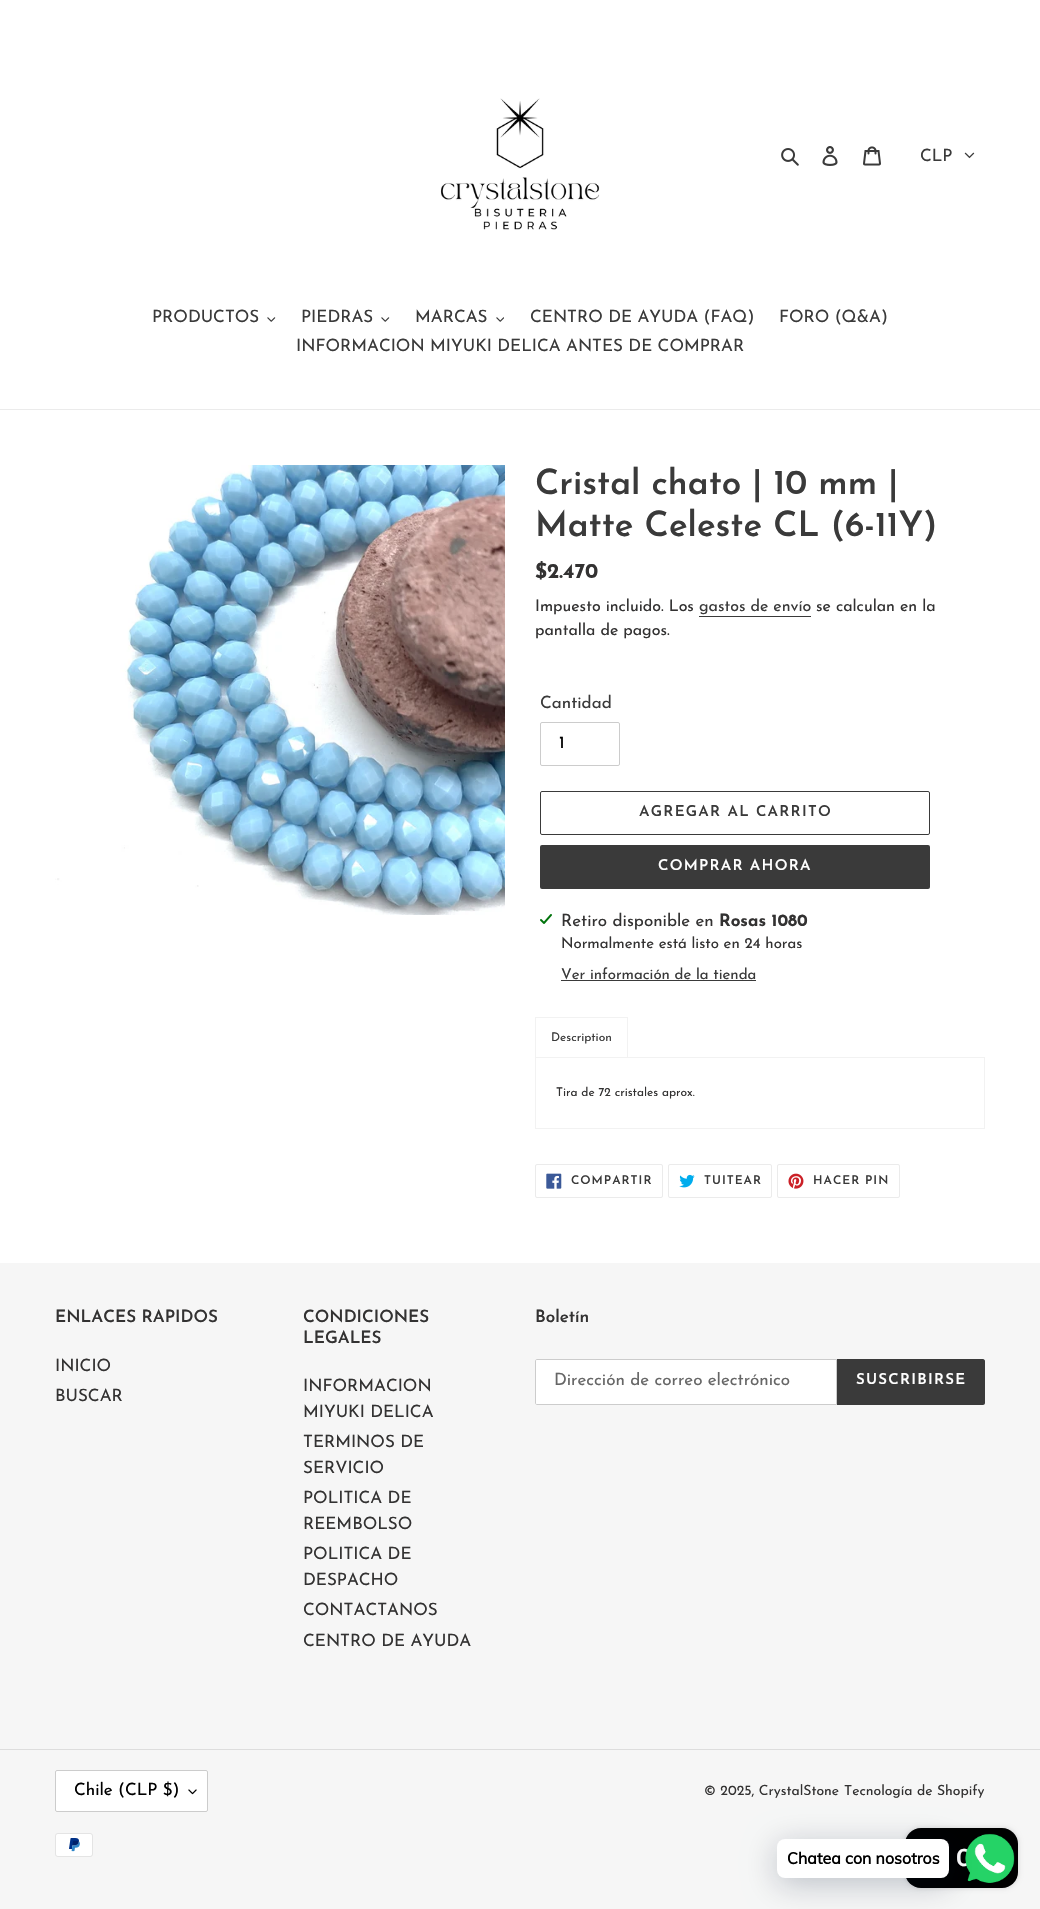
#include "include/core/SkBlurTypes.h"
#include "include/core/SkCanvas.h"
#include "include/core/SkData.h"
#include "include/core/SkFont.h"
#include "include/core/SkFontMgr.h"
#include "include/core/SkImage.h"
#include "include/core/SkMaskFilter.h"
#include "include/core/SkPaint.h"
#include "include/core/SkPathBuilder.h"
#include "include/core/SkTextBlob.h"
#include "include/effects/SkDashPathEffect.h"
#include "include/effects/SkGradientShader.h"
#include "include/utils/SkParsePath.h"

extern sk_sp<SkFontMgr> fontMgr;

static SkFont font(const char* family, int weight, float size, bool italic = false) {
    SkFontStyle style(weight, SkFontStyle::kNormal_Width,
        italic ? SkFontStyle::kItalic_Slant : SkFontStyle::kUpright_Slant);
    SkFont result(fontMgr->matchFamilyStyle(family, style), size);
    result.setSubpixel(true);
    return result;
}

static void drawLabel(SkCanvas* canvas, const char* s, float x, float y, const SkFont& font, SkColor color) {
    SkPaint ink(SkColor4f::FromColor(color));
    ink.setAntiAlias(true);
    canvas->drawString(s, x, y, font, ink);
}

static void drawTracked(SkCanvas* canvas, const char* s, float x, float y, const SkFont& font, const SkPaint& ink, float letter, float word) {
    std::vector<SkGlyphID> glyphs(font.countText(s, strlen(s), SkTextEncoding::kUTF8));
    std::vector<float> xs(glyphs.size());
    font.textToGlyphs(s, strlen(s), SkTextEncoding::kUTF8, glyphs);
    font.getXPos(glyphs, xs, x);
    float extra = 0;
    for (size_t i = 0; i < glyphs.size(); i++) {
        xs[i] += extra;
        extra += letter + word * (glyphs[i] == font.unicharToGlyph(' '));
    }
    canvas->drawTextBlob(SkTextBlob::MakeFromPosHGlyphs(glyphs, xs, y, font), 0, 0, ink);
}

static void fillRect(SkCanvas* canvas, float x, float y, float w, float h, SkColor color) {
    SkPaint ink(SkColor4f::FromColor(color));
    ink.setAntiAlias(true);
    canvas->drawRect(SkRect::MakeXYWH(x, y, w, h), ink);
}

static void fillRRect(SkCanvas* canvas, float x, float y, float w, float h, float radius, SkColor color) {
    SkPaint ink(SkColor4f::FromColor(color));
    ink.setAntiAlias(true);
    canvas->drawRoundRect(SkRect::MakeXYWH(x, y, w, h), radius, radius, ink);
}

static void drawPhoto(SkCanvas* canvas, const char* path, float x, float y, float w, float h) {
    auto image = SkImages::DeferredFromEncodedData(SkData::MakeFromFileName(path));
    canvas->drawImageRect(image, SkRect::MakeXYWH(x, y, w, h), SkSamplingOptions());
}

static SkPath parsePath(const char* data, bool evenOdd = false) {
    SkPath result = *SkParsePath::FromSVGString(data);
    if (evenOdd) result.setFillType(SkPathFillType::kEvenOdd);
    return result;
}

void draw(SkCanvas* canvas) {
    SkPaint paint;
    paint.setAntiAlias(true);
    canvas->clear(0xFFFFFFFF);
    drawPhoto(canvas, "assets/img1.png", 440, 98, 160, 132);
    drawPhoto(canvas, "assets/img2.png", 781, 148, 18, 18);
    drawPhoto(canvas, "assets/img3.png", 822, 146, 16, 20);
    drawPhoto(canvas, "assets/img4.png", 863, 146, 18, 20);
    SkFont font1 = font("Josefin Sans", 400, 17);
    drawLabel(canvas, "CLP", 920, 161, font1, 0xFF3A3A3A);
    drawPhoto(canvas, "assets/img5.png", 964, 152, 11, 7);
    fillRect(canvas, 0, 409, 1040, 1, 0xFFEBEBEB);
    drawLabel(canvas, "PRODUCTOS", 152, 322, font1, 0xFF3A3A3A);
    drawPhoto(canvas, "assets/img6.png", 267, 317, 9, 5);
    drawLabel(canvas, "PIEDRAS", 301, 322, font1, 0xFF3A3A3A);
    drawPhoto(canvas, "assets/img6.png", 381, 317, 9, 5);
    drawLabel(canvas, "MARCAS", 415, 322, font1, 0xFF3A3A3A);
    drawPhoto(canvas, "assets/img7.png", 496, 317, 8, 5);
    drawLabel(canvas, "CENTRO DE AYUDA (FAQ)", 530, 322, font1, 0xFF3A3A3A);
    drawLabel(canvas, "FORO (Q&A)", 779, 322, font1, 0xFF3A3A3A);
    drawLabel(canvas, "INFORMACION MIYUKI DELICA ANTES DE COMPRAR", 296, 351, font1, 0xFF3A3A3A);
    drawPhoto(canvas, "assets/img8.png", 55, 465, 450, 450);
    SkFont font2 = font("Josefin Sans", 600, 35);
    drawLabel(canvas, "Cristal chato | 10 mm |", 535, 494, font2, 0xFF3A3A3A);
    drawLabel(canvas, "Matte Celeste CL (6-11Y)", 535, 536, font2, 0xFF3A3A3A);
    SkFont font3 = font("Josefin Sans", 700, 21);
    drawLabel(canvas, "$2.470", 535, 578, font3, 0xFF333232);
    SkFont font4 = font("Josefin Sans", 400, 16);
    drawLabel(canvas, "Impuesto incluido. Los", 535, 611, font4, 0xFF333232);
    drawLabel(canvas, "gastos de envío", 699, 611, font4, 0xFF3A3A3A);
    fillRect(canvas, 699, 616, 112, 1, 0xFF3A3A3A);
    drawLabel(canvas, "se calculan en la", 816, 611, font4, 0xFF333232);
    drawLabel(canvas, "pantalla de pagos.", 535, 635, font4, 0xFF333232);
    drawLabel(canvas, "Cantidad", 540, 708, font1, 0xFF3A3A3A);
    paint.setStroke(true);
    paint.setStrokeWidth(1);
    paint.setColor(0xFFCCCCCC);
    canvas->drawRoundRect(SkRect::MakeXYWH(540.5f, 722.5f, 79, 43), 1.5f, 1.5f, paint);
    drawLabel(canvas, "1", 559, 748, font1, 0xFF000000);
    paint.setColor(0xFF3A3A3A);
    canvas->drawRoundRect(SkRect::MakeXYWH(540.5f, 791.5f, 389, 43), 1.5f, 1.5f, paint);
    SkFont font5 = font("Josefin Sans", 600, 15);
    paint.setStroke(false);
    drawTracked(canvas, "AGREGAR AL CARRITO", 639, 816, font5, paint, 1.25f, 0);
    fillRRect(canvas, 540, 845, 390, 44, 2, 0xFF3A3A3A);
    paint.setColor(0xFFFFFFFF);
    drawTracked(canvas, "COMPRAR AHORA", 658, 870, font5, paint, 1.25f, 0);
    drawPhoto(canvas, "assets/img9.png", 540, 914, 12, 10);
    drawLabel(canvas, "Retiro disponible en", 561, 926, font1, 0xFF333232);
    SkFont font6 = font("Josefin Sans", 700, 17);
    drawLabel(canvas, "Rosas 1080", 719, 926, font6, 0xFF333232);
    SkFont font7 = font("Josefin Sans", 400, 15);
    drawLabel(canvas, "Normalmente está listo en 24 horas", 561, 948, font7, 0xFF333232);
    drawLabel(canvas, "Ver información de la tienda", 561, 979, font7, 0xFF3A3A3A);
    fillRect(canvas, 561, 980, 195, 1, 0xFF3A3A3A);
    fillRect(canvas, 535, 1017, 93, 1, 0xFFF2F2F2);
    fillRect(canvas, 627, 1017, 1, 41, 0xFFF2F2F2);
    fillRect(canvas, 535, 1017, 1, 41, 0xFFF2F2F2);
    SkFont font8 = font("Josefin Sans", 400, 12);
    drawLabel(canvas, "Description", 551, 1041, font8, 0xFF3A3A3A);
    paint.setStroke(true);
    paint.setColor(0xFFF2F2F2);
    canvas->drawRect(SkRect::MakeXYWH(535.5f, 1057.5f, 449, 71), paint);
    drawLabel(canvas, "Tira de 72 cristales aprox.", 556, 1096, font8, 0xFF333232);
    paint.setColor(0xFFEBEBEB);
    canvas->drawRoundRect(SkRect::MakeXYWH(535.5f, 1164.5f, 127, 33), 1.5f, 1.5f, paint);
    drawPhoto(canvas, "assets/img10.png", 546, 1173, 16, 16);
    SkFont font9 = font("Josefin Sans", 600, 12);
    paint.setStroke(false);
    paint.setColor(0xFF3A3A3A);
    drawTracked(canvas, "COMPARTIR", 571, 1184, font9, paint, 1, 0);
    paint.setStroke(true);
    paint.setColor(0xFFEBEBEB);
    canvas->drawRoundRect(SkRect::MakeXYWH(668.5f, 1164.5f, 103, 33), 1.5f, 1.5f, paint);
    drawPhoto(canvas, "assets/img11.png", 679, 1174, 16, 14);
    paint.setStroke(false);
    paint.setColor(0xFF3A3A3A);
    drawTracked(canvas, "TUITEAR", 704, 1184, font9, paint, 1, 0);
    paint.setStroke(true);
    paint.setColor(0xFFEBEBEB);
    canvas->drawRoundRect(SkRect::MakeXYWH(777.5f, 1164.5f, 122, 33), 1.5f, 1.5f, paint);
    drawPhoto(canvas, "assets/img12.png", 788, 1173, 16, 16);
    paint.setStroke(false);
    paint.setColor(0xFF3A3A3A);
    drawTracked(canvas, "HACER PIN", 813, 1184, font9, paint, 1, 0);
    fillRect(canvas, 0, 1263, 1040, 646, 0xFFF6F6F6);
    SkFont font10 = font("Josefin Sans", 600, 17);
    drawLabel(canvas, "ENLACES RAPIDOS", 55, 1322, font10, 0xFF333232);
    drawLabel(canvas, "INICIO", 55, 1371, font1, 0xFF333232);
    drawLabel(canvas, "BUSCAR", 55, 1401, font1, 0xFF333232);
    drawLabel(canvas, "CONDICIONES", 303, 1322, font10, 0xFF333232);
    drawLabel(canvas, "LEGALES", 303, 1343, font10, 0xFF333232);
    drawLabel(canvas, "INFORMACION", 303, 1391, font1, 0xFF333232);
    drawLabel(canvas, "MIYUKI DELICA", 303, 1417, font1, 0xFF333232);
    drawLabel(canvas, "TERMINOS DE", 303, 1447, font1, 0xFF333232);
    drawLabel(canvas, "SERVICIO", 303, 1473, font1, 0xFF333232);
    drawLabel(canvas, "POLITICA DE", 303, 1503, font1, 0xFF333232);
    drawLabel(canvas, "REEMBOLSO", 303, 1529, font1, 0xFF333232);
    drawLabel(canvas, "POLITICA DE", 303, 1559, font1, 0xFF333232);
    drawLabel(canvas, "DESPACHO", 303, 1585, font1, 0xFF333232);
    drawLabel(canvas, "CONTACTANOS", 303, 1615, font1, 0xFF333232);
    drawLabel(canvas, "CENTRO DE AYUDA", 303, 1646, font1, 0xFF333232);
    drawLabel(canvas, "Boletín", 535, 1322, font10, 0xFF333232);
    paint.setColor(0xFFFFFFFF);
    canvas->drawPath(parsePath("M537 1359.5H836.5V1404.5H537C536 1404.5 535.5 1404 535.5 1403V1361C535.5 1360 536 1359.5 537 1359.5Z"), paint);
    paint.setStroke(true);
    paint.setColor(0xFFCCCCCC);
    canvas->drawPath(parsePath("M537 1359.5H836.5V1404.5H537C536 1404.5 535.5 1404 535.5 1403V1361C535.5 1360 536 1359.5 537 1359.5Z"), paint);
    canvas->save();
    canvas->clipRect(SkRect::MakeXYWH(554, 1372, 264, 17));
    drawLabel(canvas, "Dirección de correo electrónico", 554, 1385, font1, 0xFF666666);
    canvas->restore();
    paint.setStroke(false);
    paint.setColor(0xFF3A3A3A);
    canvas->drawPath(parsePath("M837 1359H983C984 1359 985 1360 985 1361V1403C985 1404 984 1405 983 1405H837Z"), paint);
    paint.setColor(0xFFFFFFFF);
    drawTracked(canvas, "SUSCRIBIRSE", 856, 1384, font5, paint, 1.25f, 0);
    fillRect(canvas, 0, 1749, 1040, 1, 0xFFDDDDDD);
    fillRRect(canvas, 55, 1770, 153, 42, 2, 0xFFFFFFFF);
    drawPhoto(canvas, "assets/img13.png", 188, 1789, 9, 6);
    paint.setStroke(true);
    paint.setColor(0xFFCCCCCC);
    canvas->drawRoundRect(SkRect::MakeXYWH(55.5f, 1770.5f, 152, 41), 1.5f, 1.5f, paint);
    drawLabel(canvas, "Chile (CLP $)", 74, 1795, font1, 0xFF000000);
    SkFont font11 = font("Josefin Sans", 400, 14);
    drawLabel(canvas, "© 2025, CrystalStone", 704, 1795, font11, 0xFF333232);
    drawLabel(canvas, "Tecnología de Shopify", 844, 1795, font11, 0xFF333232);
    drawPhoto(canvas, "assets/img14.png", 55, 1833, 38, 24);
    paint.setStroke(false);
    paint.setColor(0x26000000);
    paint.setMaskFilter(SkMaskFilter::MakeBlur(kNormal_SkBlurStyle, 2.5f));
    canvas->drawRoundRect(SkRect::MakeXYWH(905, 1828, 113, 60), 16, 16, paint);
    paint.setMaskFilter(nullptr);
    fillRRect(canvas, 905, 1828, 113, 60, 16, 0xFF000000);
    SkFont font12 = font("Roboto", 600, 24);
    drawLabel(canvas, "C", 956, 1866, font12, 0xFFFFFFFF);
    drawPhoto(canvas, "assets/img15.png", 965, 1833, 50, 50);
    paint.setColor(0x3D00122E);
    paint.setMaskFilter(SkMaskFilter::MakeBlur(kNormal_SkBlurStyle, 16));
    canvas->drawRoundRect(SkRect::MakeXYWH(777, 1845, 172, 39), 8, 8, paint);
    paint.setMaskFilter(nullptr);
    fillRRect(canvas, 777, 1839, 172, 39, 8, 0xFFFFFFFF);
    SkFont font13 = font("Muli", 700, 16);
    drawLabel(canvas, "Chatea con nosotros", 787, 1864, font13, 0xFF000000);
}
